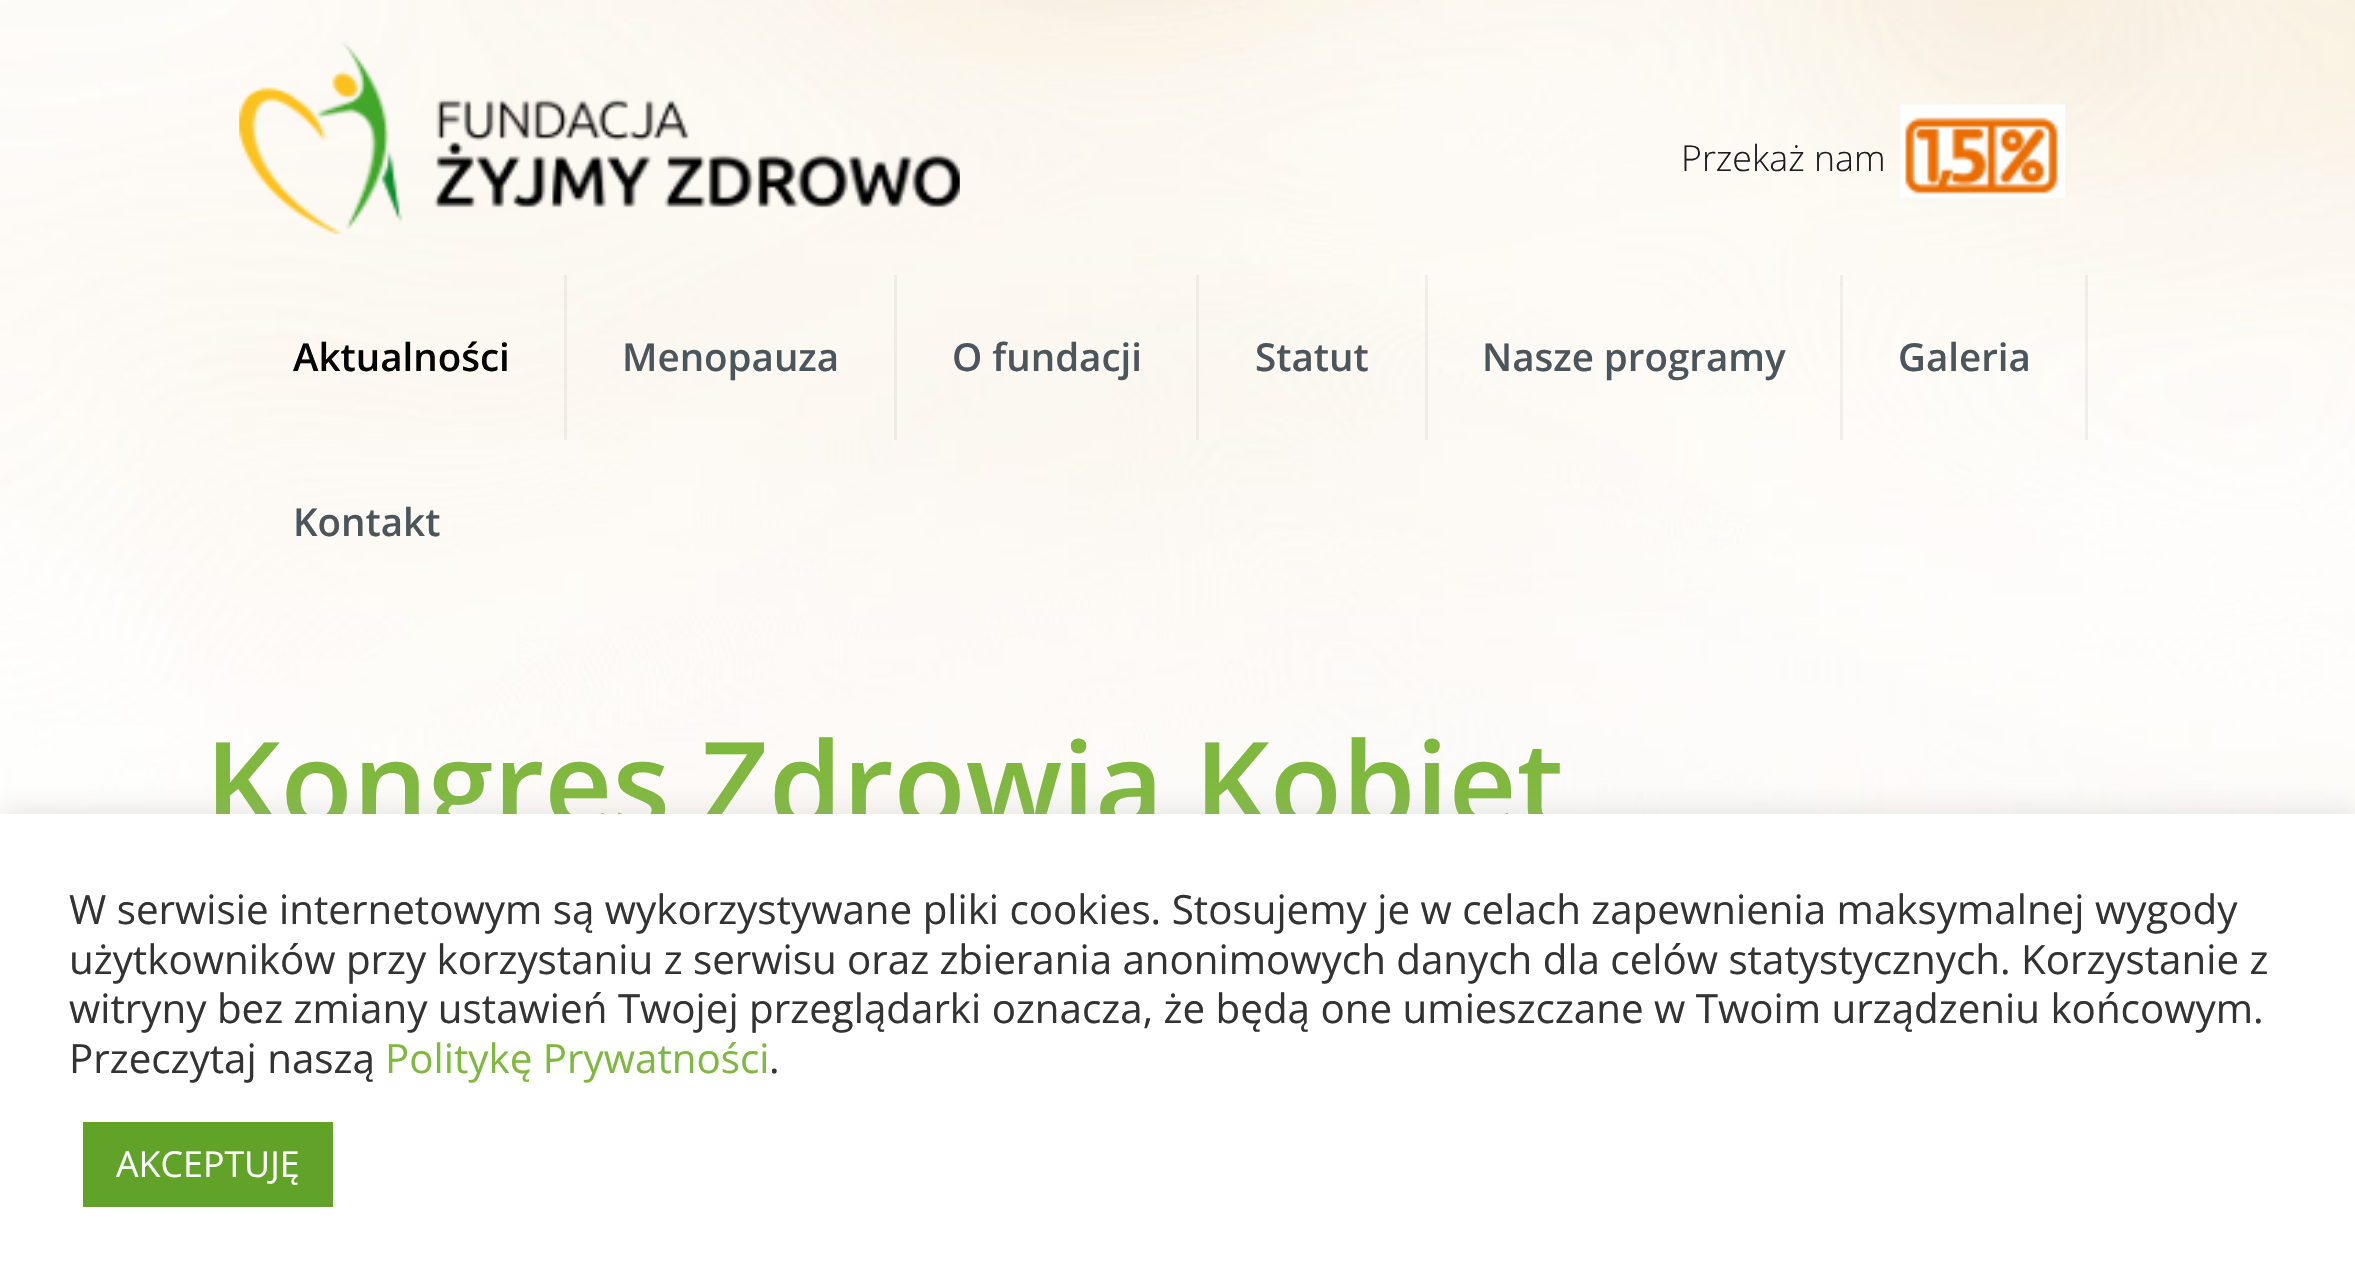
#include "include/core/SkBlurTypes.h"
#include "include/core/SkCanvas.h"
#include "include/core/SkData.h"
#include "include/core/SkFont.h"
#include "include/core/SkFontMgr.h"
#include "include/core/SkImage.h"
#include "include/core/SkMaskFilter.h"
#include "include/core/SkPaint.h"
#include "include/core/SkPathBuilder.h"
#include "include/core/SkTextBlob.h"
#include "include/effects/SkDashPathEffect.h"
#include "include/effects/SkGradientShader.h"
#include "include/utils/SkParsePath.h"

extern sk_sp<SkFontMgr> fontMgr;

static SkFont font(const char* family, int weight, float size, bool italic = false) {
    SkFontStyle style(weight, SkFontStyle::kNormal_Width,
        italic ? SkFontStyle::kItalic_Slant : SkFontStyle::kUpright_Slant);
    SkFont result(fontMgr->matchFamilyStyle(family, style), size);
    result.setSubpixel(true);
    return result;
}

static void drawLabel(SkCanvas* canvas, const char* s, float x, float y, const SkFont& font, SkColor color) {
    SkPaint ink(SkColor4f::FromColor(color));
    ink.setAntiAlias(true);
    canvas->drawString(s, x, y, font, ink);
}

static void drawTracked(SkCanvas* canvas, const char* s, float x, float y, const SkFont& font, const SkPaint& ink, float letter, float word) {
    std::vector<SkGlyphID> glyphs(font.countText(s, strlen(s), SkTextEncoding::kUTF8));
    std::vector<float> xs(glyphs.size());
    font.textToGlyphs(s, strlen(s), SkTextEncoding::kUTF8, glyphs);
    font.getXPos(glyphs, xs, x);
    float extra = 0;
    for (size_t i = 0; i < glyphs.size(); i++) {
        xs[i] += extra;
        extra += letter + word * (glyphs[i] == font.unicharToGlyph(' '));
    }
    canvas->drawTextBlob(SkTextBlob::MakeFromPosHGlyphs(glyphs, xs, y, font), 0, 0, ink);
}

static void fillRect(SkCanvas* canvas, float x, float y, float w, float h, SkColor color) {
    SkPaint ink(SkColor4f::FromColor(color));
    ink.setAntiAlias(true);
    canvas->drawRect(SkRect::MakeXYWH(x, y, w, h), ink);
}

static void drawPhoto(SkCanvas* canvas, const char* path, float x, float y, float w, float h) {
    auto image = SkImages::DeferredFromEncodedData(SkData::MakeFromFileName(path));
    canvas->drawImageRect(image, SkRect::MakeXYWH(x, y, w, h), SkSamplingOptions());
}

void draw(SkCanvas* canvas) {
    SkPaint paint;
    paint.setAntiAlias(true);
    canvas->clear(0xFFFFFFFF);
    drawPhoto(canvas, "assets/img1.png", 0, 0, 2355, 814);
    drawPhoto(canvas, "assets/img2.png", 239, 41, 721, 193);
    SkFont font1 = font("Open Sans", 300, 35.75f);
    drawLabel(canvas, "Przekaż nam", 1681, 171, font1, 0xFF1B1C20);
    drawPhoto(canvas, "assets/img3.png", 1900, 104, 166, 94);
    fillRect(canvas, 564, 275, 3, 165, 0x0D000000);
    SkFont font2 = font("Open Sans", 600, 38.5f);
    drawLabel(canvas, "Aktualności", 293, 371, font2, 0xFF030303);
    fillRect(canvas, 894, 275, 3, 165, 0xFFEFEBE5);
    drawLabel(canvas, "Menopauza", 622, 371, font2, 0xFF4B555C);
    fillRect(canvas, 1196, 275, 3, 165, 0xFFEFEBE5);
    drawLabel(canvas, "O fundacji", 952, 371, font2, 0xFF4B555C);
    fillRect(canvas, 1425, 275, 3, 165, 0x0D000000);
    drawLabel(canvas, "Statut", 1255, 371, font2, 0xFF4B555C);
    fillRect(canvas, 1840, 275, 3, 165, 0x0D000000);
    drawLabel(canvas, "Nasze programy", 1482, 371, font2, 0xFF4B555C);
    fillRect(canvas, 2085, 275, 3, 165, 0x0D000000);
    drawLabel(canvas, "Galeria", 1898, 371, font2, 0xFF4B555C);
    drawLabel(canvas, "Kontakt", 293, 536, font2, 0xFF4B555C);
    SkFont font3 = font("Open Sans", 600, 118.25f);
    drawLabel(canvas, "Kongres Zdrowia Kobiet", 205, 827, font3, 0xFF7FB83E);
    paint.setColor(0x4DACABAB);
    paint.setMaskFilter(SkMaskFilter::MakeBlur(kNormal_SkBlurStyle, 14));
    canvas->drawRect(SkRect::MakeXYWH(0, 811, 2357, 476), paint);
    paint.setMaskFilter(nullptr);
    fillRect(canvas, 0, 814, 2355, 474, 0xFFFFFFFF);
    SkFont font4 = font("Open Sans", 400, 40.33f);
    drawLabel(canvas, "W serwisie internetowym są wykorzystywane pliki cookies. Stosujemy je w celach zapewnienia maksymalnej wygody", 69, 924, font4, 0xFF333333);
    paint.setColor(0xFF333333);
    drawTracked(canvas, "użytkowników przy korzystaniu z serwisu oraz zbierania anonimowych danych dla celów statystycznych. Korzystanie z", 69, 974, font4, paint, 0, -0.1f);
    drawLabel(canvas, "witryny bez zmiany ustawień Twojej przeglądarki oznacza, że będą one umieszczane w Twoim urządzeniu końcowym.", 69, 1023, font4, 0xFF333333);
    drawLabel(canvas, "Przeczytaj naszą", 69, 1073, font4, 0xFF333333);
    drawLabel(canvas, "Politykę Prywatności", 385, 1073, font4, 0xFF7FB83E);
    drawLabel(canvas, ".", 769, 1073, font4, 0xFF333333);
    fillRect(canvas, 83, 1122, 250, 85, 0xFF61A229);
    SkFont font5 = font("Open Sans", 400, 35.75f);
    drawLabel(canvas, "AKCEPTUJĘ", 116, 1177, font5, 0xFFFFFFFF);
}
